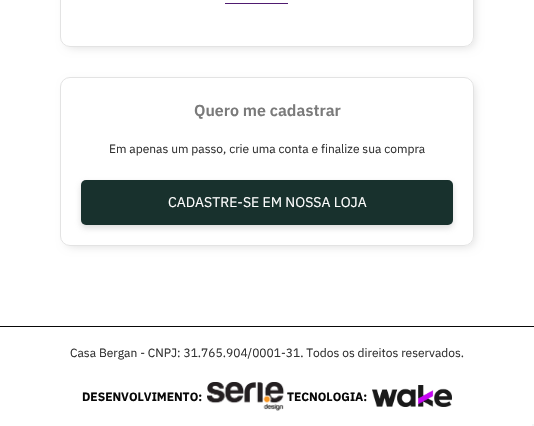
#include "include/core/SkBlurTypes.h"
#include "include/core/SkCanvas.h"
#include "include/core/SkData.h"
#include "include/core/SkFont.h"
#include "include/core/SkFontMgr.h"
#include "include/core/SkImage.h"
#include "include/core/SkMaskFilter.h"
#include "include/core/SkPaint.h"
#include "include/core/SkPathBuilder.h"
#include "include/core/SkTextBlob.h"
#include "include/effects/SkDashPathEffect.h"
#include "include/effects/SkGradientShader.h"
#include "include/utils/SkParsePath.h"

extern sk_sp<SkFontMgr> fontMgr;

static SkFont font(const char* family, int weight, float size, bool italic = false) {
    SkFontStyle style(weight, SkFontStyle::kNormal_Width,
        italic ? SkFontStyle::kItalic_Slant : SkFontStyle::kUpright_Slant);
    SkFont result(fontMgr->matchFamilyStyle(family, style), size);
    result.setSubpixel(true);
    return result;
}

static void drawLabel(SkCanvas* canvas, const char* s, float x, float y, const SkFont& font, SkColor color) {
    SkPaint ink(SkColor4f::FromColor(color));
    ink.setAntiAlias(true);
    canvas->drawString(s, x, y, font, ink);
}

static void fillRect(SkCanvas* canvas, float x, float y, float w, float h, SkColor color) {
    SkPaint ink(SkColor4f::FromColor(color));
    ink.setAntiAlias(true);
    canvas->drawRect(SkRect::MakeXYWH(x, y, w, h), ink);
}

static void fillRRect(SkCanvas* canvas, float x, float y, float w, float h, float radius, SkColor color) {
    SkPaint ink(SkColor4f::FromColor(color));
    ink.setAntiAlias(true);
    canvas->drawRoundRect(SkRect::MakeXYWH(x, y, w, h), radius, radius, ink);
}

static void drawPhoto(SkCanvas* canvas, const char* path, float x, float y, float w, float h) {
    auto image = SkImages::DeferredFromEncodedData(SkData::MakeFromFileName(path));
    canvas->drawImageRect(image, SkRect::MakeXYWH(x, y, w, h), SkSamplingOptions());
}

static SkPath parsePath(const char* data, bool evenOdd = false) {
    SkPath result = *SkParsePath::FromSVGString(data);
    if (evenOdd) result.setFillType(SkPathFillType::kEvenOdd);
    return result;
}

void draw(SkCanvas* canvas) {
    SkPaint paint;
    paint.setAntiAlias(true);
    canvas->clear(0xFFFFFFFF);
    canvas->save();
    canvas->clipPath(parsePath("M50 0H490V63H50ZM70-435H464C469.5-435 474-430.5 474-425V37C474 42.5 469.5 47 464 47H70C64.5 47 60 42.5 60 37V-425C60-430.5 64.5-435 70-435Z", true), true);
    paint.setColor(0xFFDBDBDB);
    paint.setMaskFilter(SkMaskFilter::MakeBlur(kNormal_SkBlurStyle, 5));
    canvas->drawRoundRect(SkRect::MakeXYWH(66, -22, 408, 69), 7, 7, paint);
    paint.setMaskFilter(nullptr);
    canvas->restore();
    paint.setStroke(true);
    paint.setStrokeWidth(1);
    paint.setColor(0xFFE3E3E3);
    canvas->drawRoundRect(SkRect::MakeXYWH(60.5f, -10.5f, 413, 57), 9.5f, 9.5f, paint);
    fillRect(canvas, 225, 3, 63, 1, 0xFF4F1B70);
    canvas->save();
    canvas->clipPath(parsePath("M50 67H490V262H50ZM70 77H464C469.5 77 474 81.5 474 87V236C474 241.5 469.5 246 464 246H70C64.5 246 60 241.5 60 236V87C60 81.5 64.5 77 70 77Z", true), true);
    paint.setStroke(false);
    paint.setColor(0xFFDBDBDB);
    paint.setMaskFilter(SkMaskFilter::MakeBlur(kNormal_SkBlurStyle, 5));
    canvas->drawRoundRect(SkRect::MakeXYWH(66, 83, 408, 163), 7, 7, paint);
    paint.setMaskFilter(nullptr);
    canvas->restore();
    paint.setStroke(true);
    paint.setColor(0xFFE3E3E3);
    canvas->drawRoundRect(SkRect::MakeXYWH(60.5f, 77.5f, 413, 168), 9.5f, 9.5f, paint);
    SkFont font1 = font("IBM Plex Sans", 600, 16);
    drawLabel(canvas, "Quero me cadastrar", 194, 116, font1, 0xFF7A7A7A);
    SkFont font2 = font("IBM Plex Sans", 400, 12);
    drawLabel(canvas, "Em apenas um passo, crie uma conta e finalize sua compra", 109, 153, font2, 0xFF333333);
    paint.setStroke(false);
    paint.setColor(0xB3CCCCCC);
    paint.setMaskFilter(SkMaskFilter::MakeBlur(kNormal_SkBlurStyle, 3));
    canvas->drawRoundRect(SkRect::MakeXYWH(81, 183, 372, 45), 5, 5, paint);
    paint.setMaskFilter(nullptr);
    fillRRect(canvas, 81, 180, 372, 45, 5, 0xFF18312D);
    SkFont font3 = font("IBM Plex Sans", 400, 14);
    drawLabel(canvas, "CADASTRE-SE EM NOSSA LOJA", 168, 207, font3, 0xFFFFFFFF);
    fillRect(canvas, 0, 326, 534, 1, 0xFF080808);
    drawLabel(canvas, "Casa Bergan - CNPJ: 31.765.904/0001-31. Todos os direitos reservados.", 70, 357, font2, 0xFF333333);
    SkFont font4 = font("IBM Plex Sans", 700, 12);
    drawLabel(canvas, "DESENVOLVIMENTO:", 82, 401, font4, 0xFF080808);
    drawPhoto(canvas, "assets/img1.png", 207, 382, 78, 29);
    drawLabel(canvas, "TECNOLOGIA:", 287, 401, font4, 0xFF080808);
    drawPhoto(canvas, "assets/img2.png", 372, 385, 80, 22);
    fillRect(canvas, 532, 424, 2, 2, 0xFFF5F5F5);
}
